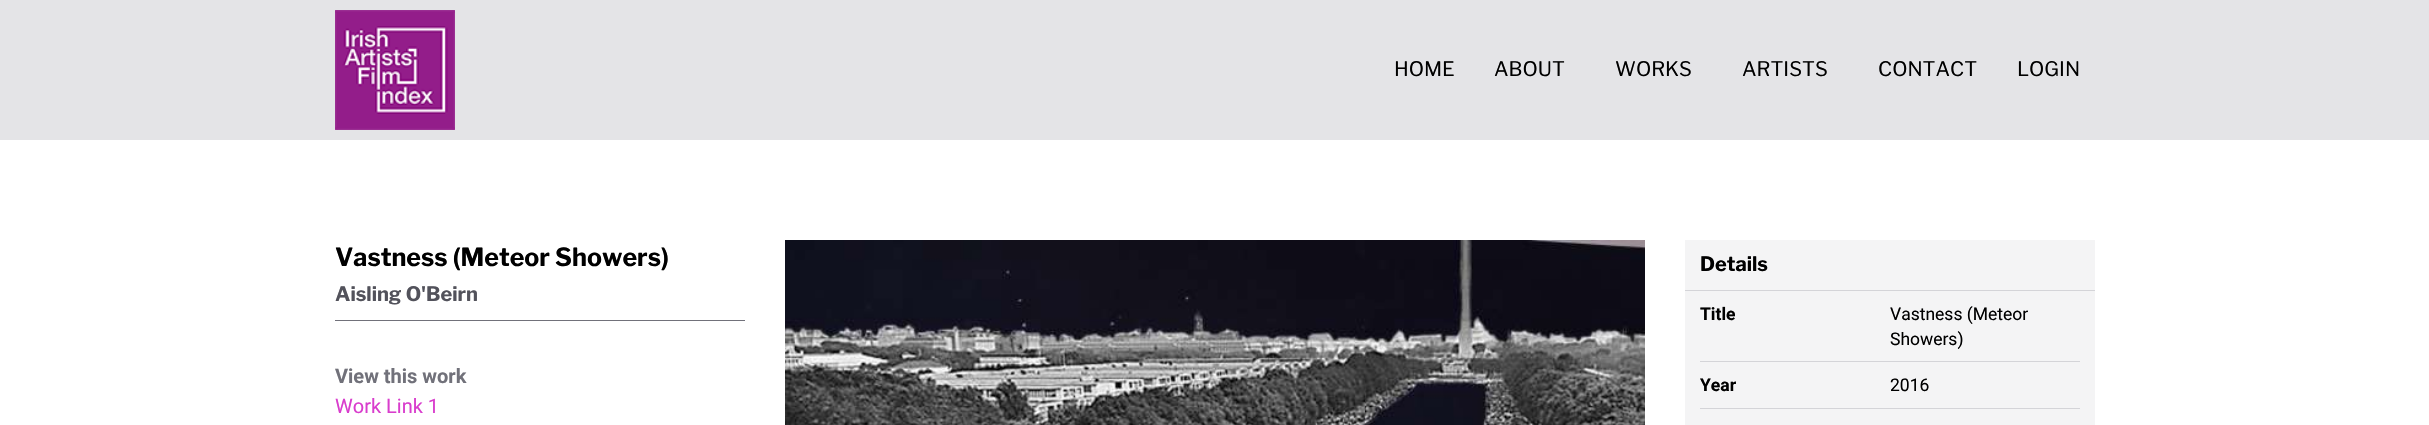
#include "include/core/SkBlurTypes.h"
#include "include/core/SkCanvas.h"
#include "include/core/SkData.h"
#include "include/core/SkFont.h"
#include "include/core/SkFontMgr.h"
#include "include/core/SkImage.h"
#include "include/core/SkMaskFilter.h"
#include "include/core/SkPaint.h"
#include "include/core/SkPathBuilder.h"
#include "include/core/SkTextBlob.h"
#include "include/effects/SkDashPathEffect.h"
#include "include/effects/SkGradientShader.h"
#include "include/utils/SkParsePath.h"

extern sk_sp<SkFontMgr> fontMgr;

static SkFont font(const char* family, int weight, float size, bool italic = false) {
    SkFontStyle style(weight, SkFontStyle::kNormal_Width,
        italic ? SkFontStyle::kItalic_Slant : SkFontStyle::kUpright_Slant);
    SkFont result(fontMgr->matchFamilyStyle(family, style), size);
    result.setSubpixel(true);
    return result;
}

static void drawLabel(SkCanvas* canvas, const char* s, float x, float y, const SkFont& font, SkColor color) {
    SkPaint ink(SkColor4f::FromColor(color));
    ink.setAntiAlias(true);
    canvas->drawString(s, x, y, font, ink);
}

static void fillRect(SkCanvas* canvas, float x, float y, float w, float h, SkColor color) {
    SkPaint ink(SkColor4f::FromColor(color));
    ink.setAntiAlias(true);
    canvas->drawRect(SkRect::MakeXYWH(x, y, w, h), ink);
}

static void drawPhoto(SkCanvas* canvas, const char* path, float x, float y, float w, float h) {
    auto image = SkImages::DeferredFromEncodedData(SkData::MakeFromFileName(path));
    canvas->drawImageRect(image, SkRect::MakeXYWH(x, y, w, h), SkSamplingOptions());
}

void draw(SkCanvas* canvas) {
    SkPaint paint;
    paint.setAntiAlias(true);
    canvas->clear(0xFFFFFFFF);
    fillRect(canvas, 0, 0, 2429, 140, 0xFFE4E4E7);
    drawPhoto(canvas, "assets/img1.png", 335, 10, 120, 120);
    SkFont font1 = font("Libre Franklin", 400, 20);
    drawLabel(canvas, "HOME", 1394, 76, font1, 0xFF000000);
    drawLabel(canvas, "ABOUT", 1494, 76, font1, 0xFF000000);
    drawLabel(canvas, "WORKS", 1615, 76, font1, 0xFF000000);
    drawLabel(canvas, "ARTISTS", 1742, 76, font1, 0xFF000000);
    drawLabel(canvas, "CONTACT", 1878, 76, font1, 0xFF000000);
    drawLabel(canvas, "LOGIN", 2017, 76, font1, 0xFF000000);
    SkFont font2 = font("Libre Franklin", 700, 25);
    drawLabel(canvas, "Vastness (Meteor Showers)", 335, 266, font2, 0xFF000000);
    SkFont font3 = font("Libre Franklin", 700, 20);
    drawLabel(canvas, "Aisling O'Beirn", 335, 301, font3, 0xFF52525B);
    fillRect(canvas, 335, 320, 410, 1, 0xFF71717A);
    SkFont font4 = font("Roboto", 700, 20);
    drawLabel(canvas, "View this work", 335, 383, font4, 0xFF71717A);
    SkFont font5 = font("Roboto", 400, 20);
    drawLabel(canvas, "Work Link 1", 335, 413, font5, 0xFFD93DCD);
    drawPhoto(canvas, "assets/img2.png", 785, 240, 860, 185);
    fillRect(canvas, 1685, 240, 410, 185, 0xFFF4F4F5);
    fillRect(canvas, 1685, 290, 410, 1, 0xFFD4D4D8);
    drawLabel(canvas, "Details", 1700, 271, font3, 0xFF000000);
    SkFont font6 = font("Roboto", 700, 17.5f);
    drawLabel(canvas, "Title", 1700, 320, font6, 0xFF000000);
    SkFont font7 = font("Roboto", 400, 17.5f);
    drawLabel(canvas, "Vastness (Meteor", 1890, 320, font7, 0xFF000000);
    drawLabel(canvas, "Showers)", 1890, 345, font7, 0xFF000000);
    fillRect(canvas, 1700, 361, 380, 1, 0xFFD4D4D8);
    drawLabel(canvas, "Year", 1700, 391, font6, 0xFF000000);
    drawLabel(canvas, "2016", 1890, 391, font7, 0xFF000000);
    fillRect(canvas, 1700, 408, 380, 1, 0xFFD4D4D8);
}
